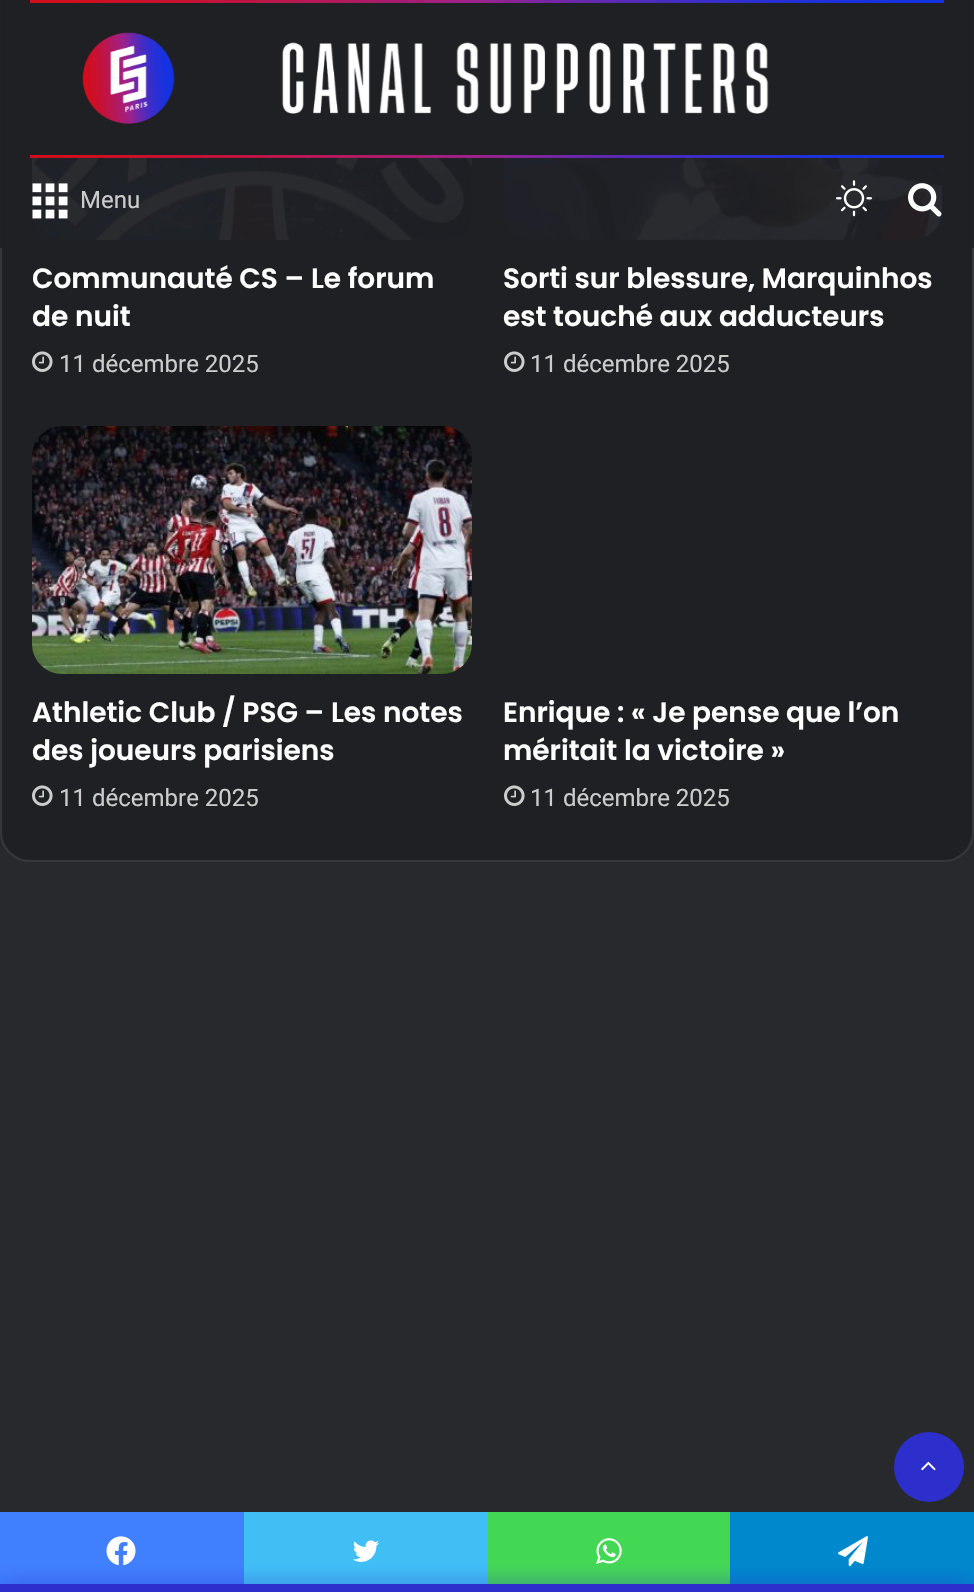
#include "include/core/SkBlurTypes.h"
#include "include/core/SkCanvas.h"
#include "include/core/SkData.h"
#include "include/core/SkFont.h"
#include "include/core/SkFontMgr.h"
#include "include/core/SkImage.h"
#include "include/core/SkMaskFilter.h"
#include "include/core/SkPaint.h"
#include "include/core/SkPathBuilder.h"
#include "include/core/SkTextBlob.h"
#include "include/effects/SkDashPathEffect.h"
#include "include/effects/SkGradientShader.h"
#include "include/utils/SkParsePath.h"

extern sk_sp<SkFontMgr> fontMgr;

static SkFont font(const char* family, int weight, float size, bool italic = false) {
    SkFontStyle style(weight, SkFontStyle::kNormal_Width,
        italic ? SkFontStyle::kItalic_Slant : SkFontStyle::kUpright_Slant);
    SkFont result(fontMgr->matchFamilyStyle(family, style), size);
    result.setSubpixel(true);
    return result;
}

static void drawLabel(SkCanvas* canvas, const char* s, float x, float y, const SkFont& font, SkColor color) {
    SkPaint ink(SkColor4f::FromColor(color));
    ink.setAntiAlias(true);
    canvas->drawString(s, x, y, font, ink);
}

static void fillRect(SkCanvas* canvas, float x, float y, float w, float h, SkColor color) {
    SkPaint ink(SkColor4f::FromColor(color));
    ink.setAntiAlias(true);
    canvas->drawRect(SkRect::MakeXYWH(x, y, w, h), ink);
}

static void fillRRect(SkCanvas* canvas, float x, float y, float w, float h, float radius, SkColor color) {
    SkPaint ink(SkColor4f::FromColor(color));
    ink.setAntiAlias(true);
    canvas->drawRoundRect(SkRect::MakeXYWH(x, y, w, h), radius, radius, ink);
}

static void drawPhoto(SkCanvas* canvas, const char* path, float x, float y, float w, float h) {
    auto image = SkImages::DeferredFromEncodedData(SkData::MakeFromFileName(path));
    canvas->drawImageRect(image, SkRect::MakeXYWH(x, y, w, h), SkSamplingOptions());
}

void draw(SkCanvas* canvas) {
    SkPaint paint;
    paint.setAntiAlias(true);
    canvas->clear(0xFF27292D);
    fillRRect(canvas, 0, -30, 974, 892, 30, 0xFF1F2024);
    paint.setStroke(true);
    paint.setStrokeWidth(2);
    paint.setColor(0x1AFFFFFF);
    canvas->drawRoundRect(SkRect::MakeXYWH(1, -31, 972, 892), 29, 29, paint);
    drawPhoto(canvas, "assets/img5.png", 32, 158, 440, 82);
    drawPhoto(canvas, "assets/img7.png", 504, 158, 438, 82);
    fillRect(canvas, 0, 0, 974, 248, 0xF21F2024);
    drawPhoto(canvas, "assets/img1.png", 30, 0, 914, 158);
    drawPhoto(canvas, "assets/img2.png", 32, 183, 36, 36);
    SkFont font1 = font("Roboto", 400, 24);
    drawLabel(canvas, "Menu", 80, 208, font1, 0xFFCCCCCC);
    drawPhoto(canvas, "assets/img3.png", 836, 180, 36, 37);
    drawPhoto(canvas, "assets/img4.png", 908, 183, 34, 34);
    SkFont font2 = font("Poppins", 600, 28);
    drawLabel(canvas, "Communauté CS – Le forum", 32, 288, font2, 0xFFFFFFFF);
    drawLabel(canvas, "de nuit", 32, 326, font2, 0xFFFFFFFF);
    drawPhoto(canvas, "assets/img6.png", 32, 351, 21, 21);
    drawLabel(canvas, "11 décembre 2025", 59, 372, font1, 0xFFCCCCCC);
    drawLabel(canvas, "Sorti sur blessure, Marquinhos", 503, 288, font2, 0xFFFFFFFF);
    drawLabel(canvas, "est touché aux adducteurs", 503, 326, font2, 0xFFFFFFFF);
    drawPhoto(canvas, "assets/img6.png", 504, 351, 21, 21);
    drawLabel(canvas, "11 décembre 2025", 530, 372, font1, 0xFFCCCCCC);
    drawPhoto(canvas, "assets/img8.png", 32, 426, 440, 248);
    drawLabel(canvas, "Athletic Club / PSG – Les notes", 32, 722, font2, 0xFFFFFFFF);
    drawLabel(canvas, "des joueurs parisiens", 32, 760, font2, 0xFFFFFFFF);
    drawPhoto(canvas, "assets/img6.png", 32, 785, 21, 21);
    drawLabel(canvas, "11 décembre 2025", 59, 806, font1, 0xFFCCCCCC);
    drawLabel(canvas, "Enrique : « Je pense que l’on", 503, 722, font2, 0xFFFFFFFF);
    drawLabel(canvas, "méritait la victoire »", 503, 760, font2, 0xFFFFFFFF);
    drawPhoto(canvas, "assets/img6.png", 504, 785, 21, 21);
    drawLabel(canvas, "11 décembre 2025", 530, 806, font1, 0xFFCCCCCC);
    paint.setStroke(false);
    paint.setColor(0xFF2C2FCC);
    canvas->drawCircle(929, 1467, 35, paint);
    drawPhoto(canvas, "assets/img9.png", 921, 1461, 15, 10);
    fillRect(canvas, 0, 1512, 244, 72, 0xFF4080FF);
    drawPhoto(canvas, "assets/img10.png", 106, 1536, 30, 30);
    fillRect(canvas, 244, 1512, 244, 72, 0xFF40BFF5);
    drawPhoto(canvas, "assets/img11.png", 353, 1540, 26, 22);
    fillRect(canvas, 488, 1512, 242, 72, 0xFF43D854);
    drawPhoto(canvas, "assets/img12.png", 596, 1538, 26, 26);
    fillRect(canvas, 730, 1512, 244, 72, 0xFF0088CC);
    drawPhoto(canvas, "assets/img13.png", 838, 1536, 30, 31);
    paint.setColor(0xB32C2FCC);
    paint.setMaskFilter(SkMaskFilter::MakeBlur(kNormal_SkBlurStyle, 10));
    canvas->drawRect(SkRect::MakeXYWH(0, 1584, 974, 8), paint);
    paint.setMaskFilter(nullptr);
    fillRect(canvas, 0, 1584, 974, 8, 0xFF2C2FCC);
}
